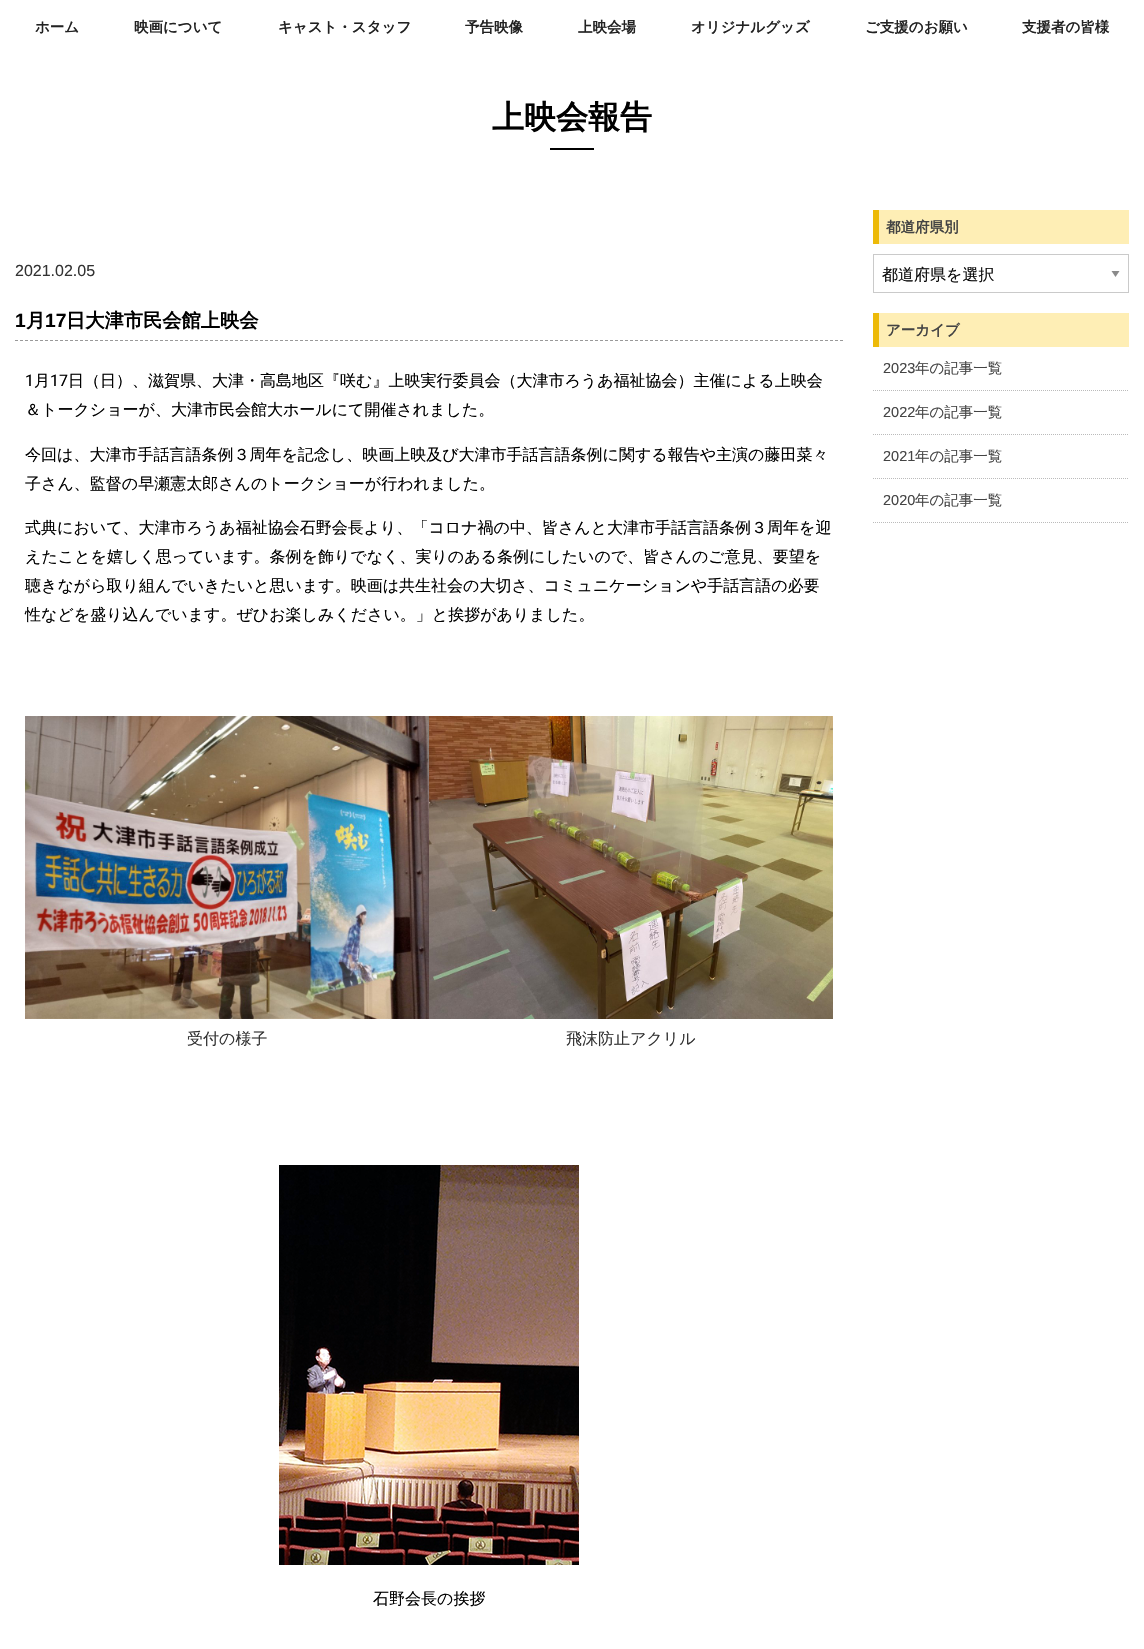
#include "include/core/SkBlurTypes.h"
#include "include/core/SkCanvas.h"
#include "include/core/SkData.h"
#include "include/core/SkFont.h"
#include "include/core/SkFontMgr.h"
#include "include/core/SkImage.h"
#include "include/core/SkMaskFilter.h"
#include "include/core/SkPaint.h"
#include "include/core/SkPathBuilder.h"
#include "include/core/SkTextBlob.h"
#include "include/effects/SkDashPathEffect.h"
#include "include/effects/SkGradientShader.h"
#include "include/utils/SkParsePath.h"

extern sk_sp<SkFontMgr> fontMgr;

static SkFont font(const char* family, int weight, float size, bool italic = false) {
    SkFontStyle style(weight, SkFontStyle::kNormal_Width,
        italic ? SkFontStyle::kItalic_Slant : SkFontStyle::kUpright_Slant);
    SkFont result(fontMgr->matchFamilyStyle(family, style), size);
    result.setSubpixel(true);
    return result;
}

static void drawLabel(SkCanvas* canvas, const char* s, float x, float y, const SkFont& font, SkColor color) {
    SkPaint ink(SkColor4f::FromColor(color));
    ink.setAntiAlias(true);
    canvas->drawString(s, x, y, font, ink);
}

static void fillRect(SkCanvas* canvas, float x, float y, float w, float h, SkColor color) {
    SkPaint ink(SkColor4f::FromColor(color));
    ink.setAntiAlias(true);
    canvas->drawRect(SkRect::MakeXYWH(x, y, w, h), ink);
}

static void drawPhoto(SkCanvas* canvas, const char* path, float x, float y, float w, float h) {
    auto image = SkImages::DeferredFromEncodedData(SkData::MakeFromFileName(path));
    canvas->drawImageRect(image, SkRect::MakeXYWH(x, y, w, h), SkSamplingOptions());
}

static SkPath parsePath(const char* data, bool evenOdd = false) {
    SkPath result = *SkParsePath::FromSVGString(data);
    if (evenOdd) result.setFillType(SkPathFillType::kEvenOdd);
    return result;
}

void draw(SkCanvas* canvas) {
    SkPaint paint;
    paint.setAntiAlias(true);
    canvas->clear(0xFFFFFFFF);
    SkFont font1 = font("WenQuanYi Zen Hei", 700, 14.5f);
    drawLabel(canvas, "ホーム", 35, 32, font1, 0xFF222222);
    drawLabel(canvas, "映画について", 134, 32, font1, 0xFF222222);
    drawLabel(canvas, "キャスト・スタッフ", 278, 32, font1, 0xFF222222);
    drawLabel(canvas, "予告映像", 465, 32, font1, 0xFF222222);
    drawLabel(canvas, "上映会場", 578, 32, font1, 0xFF222222);
    drawLabel(canvas, "オリジナルグッズ", 691, 32, font1, 0xFF222222);
    drawLabel(canvas, "ご支援のお願い", 865, 32, font1, 0xFF222222);
    drawLabel(canvas, "支援者の皆様", 1022, 32, font1, 0xFF222222);
    SkFont font2 = font("WenQuanYi Zen Hei", 700, 32);
    drawLabel(canvas, "上映会報告", 492, 128, font2, 0xFF000000);
    fillRect(canvas, 550, 148, 44, 2, 0xFF000000);
    SkFont font3 = font("Liberation Sans", 400, 16);
    drawLabel(canvas, "2021.02.05", 15, 276, font3, 0xFF333333);
    paint.setStroke(true);
    paint.setStrokeWidth(1);
    paint.setColor(0xFF999999);
    paint.setPathEffect(SkDashPathEffect::Make({{3, 2}}, 0));
    canvas->drawPath(parsePath("M15 340.5H843"), paint);
    paint.setPathEffect(nullptr);
    SkFont font4 = font("Liberation Sans", 700, 19.25f);
    drawLabel(canvas, "1", 15, 327, font4, 0xFF000000);
    SkFont font5 = font("WenQuanYi Zen Hei", 700, 19.25f);
    drawLabel(canvas, "月", 26, 327, font5, 0xFF000000);
    drawLabel(canvas, "17", 45, 327, font4, 0xFF000000);
    drawLabel(canvas, "日大津市民会館上映会", 66, 327, font5, 0xFF000000);
    SkFont font6 = font("Roboto", 400, 16);
    drawLabel(canvas, "1", 25, 386, font6, 0xFF000000);
    SkFont font7 = font("WenQuanYi Zen Hei", 500, 16);
    drawLabel(canvas, "月", 34, 386, font7, 0xFF000000);
    drawLabel(canvas, "17", 50, 386, font6, 0xFF000000);
    drawLabel(canvas, "日（日）、滋賀県、大津・高島地区『咲む』上映実行委員会（大津市ろうあ福祉協会）主催による上映会", 68, 386, font7, 0xFF000000);
    drawLabel(canvas, "＆トークショーが、大津市民会館大ホールにて開催されました。", 25, 415, font7, 0xFF000000);
    drawLabel(canvas, "今回は、大津市手話言語条例３周年を記念し、映画上映及び大津市手話言語条例に関する報告や主演の藤田菜々", 25, 460, font7, 0xFF000000);
    drawLabel(canvas, "子さん、監督の早瀬憲太郎さんのトークショーが行われました。", 25, 489, font7, 0xFF000000);
    drawLabel(canvas, "式典において、大津市ろうあ福祉協会石野会長より、「コロナ禍の中、皆さんと大津市手話言語条例３周年を迎", 25, 533, font7, 0xFF000000);
    drawLabel(canvas, "えたことを嬉しく思っています。条例を飾りでなく、実りのある条例にしたいので、皆さんのご意見、要望を", 25, 562, font7, 0xFF000000);
    drawLabel(canvas, "聴きながら取り組んでいきたいと思います。映画は共生社会の大切さ、コミュニケーションや手話言語の必要", 25, 591, font7, 0xFF000000);
    drawLabel(canvas, "性などを盛り込んでいます。ぜひお楽しみください。」と挨拶がありました。", 25, 620, font7, 0xFF000000);
    drawPhoto(canvas, "assets/img1.png", 25, 716, 404, 303);
    drawLabel(canvas, "受付の様子", 187, 1044, font7, 0xFF333333);
    drawPhoto(canvas, "assets/img2.png", 429, 716, 404, 303);
    drawLabel(canvas, "飛沫防止アクリル", 566, 1044, font7, 0xFF333333);
    drawPhoto(canvas, "assets/img3.png", 279, 1165, 300, 400);
    drawLabel(canvas, "石野会長の挨拶", 373, 1604, font7, 0xFF000000);
    fillRect(canvas, 879, 210, 250, 34, 0xFFFEEEB5);
    fillRect(canvas, 873, 210, 6, 34, 0xFFEDBA08);
    drawLabel(canvas, "都道府県別", 886, 232, font1, 0xFF444444);
    paint.setStroke(false);
    paint.setColor(0xFF8A8A8A);
    canvas->drawPath(parsePath("M1111.5 271H1119.5L1115.5 277Z"), paint);
    paint.setStroke(true);
    paint.setColor(0xFFCACACA);
    canvas->drawRect(SkRect::MakeXYWH(873.5f, 254.5f, 255, 38), paint);
    drawLabel(canvas, "都道府県を選択", 882, 280, font7, 0xFF0A0A0A);
    fillRect(canvas, 879, 313, 250, 34, 0xFFFEEEB5);
    fillRect(canvas, 873, 313, 6, 34, 0xFFEDBA08);
    drawLabel(canvas, "アーカイブ", 886, 335, font1, 0xFF444444);
    paint.setColor(0xFFBBBBBB);
    paint.setPathEffect(SkDashPathEffect::Make({{1, 1}}, 0));
    canvas->drawPath(parsePath("M873 390.5H1129"), paint);
    paint.setPathEffect(nullptr);
    SkFont font8 = font("Liberation Sans", 400, 14.5f);
    drawLabel(canvas, "2023", 883, 373, font8, 0xFF444444);
    SkFont font9 = font("WenQuanYi Zen Hei", 500, 14.5f);
    drawLabel(canvas, "年の記事一覧", 915, 373, font9, 0xFF444444);
    paint.setPathEffect(SkDashPathEffect::Make({{1, 1}}, 0));
    canvas->drawPath(parsePath("M873 434.5H1129"), paint);
    paint.setPathEffect(nullptr);
    drawLabel(canvas, "2022", 883, 417, font8, 0xFF444444);
    drawLabel(canvas, "年の記事一覧", 915, 417, font9, 0xFF444444);
    paint.setPathEffect(SkDashPathEffect::Make({{1, 1}}, 0));
    canvas->drawPath(parsePath("M873 478.5H1129"), paint);
    paint.setPathEffect(nullptr);
    drawLabel(canvas, "2021", 883, 461, font8, 0xFF444444);
    drawLabel(canvas, "年の記事一覧", 915, 461, font9, 0xFF444444);
    paint.setPathEffect(SkDashPathEffect::Make({{1, 1}}, 0));
    canvas->drawPath(parsePath("M873 522.5H1129"), paint);
    paint.setPathEffect(nullptr);
    drawLabel(canvas, "2020", 883, 505, font8, 0xFF444444);
    drawLabel(canvas, "年の記事一覧", 915, 505, font9, 0xFF444444);
}
